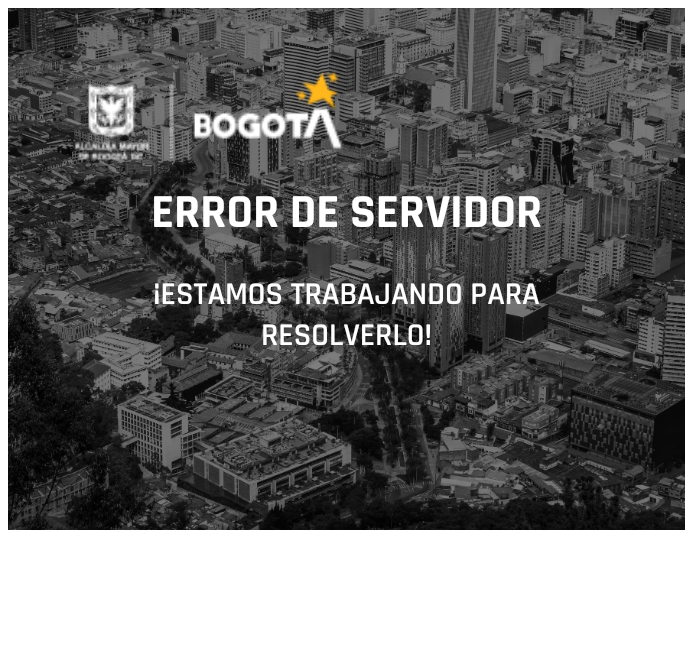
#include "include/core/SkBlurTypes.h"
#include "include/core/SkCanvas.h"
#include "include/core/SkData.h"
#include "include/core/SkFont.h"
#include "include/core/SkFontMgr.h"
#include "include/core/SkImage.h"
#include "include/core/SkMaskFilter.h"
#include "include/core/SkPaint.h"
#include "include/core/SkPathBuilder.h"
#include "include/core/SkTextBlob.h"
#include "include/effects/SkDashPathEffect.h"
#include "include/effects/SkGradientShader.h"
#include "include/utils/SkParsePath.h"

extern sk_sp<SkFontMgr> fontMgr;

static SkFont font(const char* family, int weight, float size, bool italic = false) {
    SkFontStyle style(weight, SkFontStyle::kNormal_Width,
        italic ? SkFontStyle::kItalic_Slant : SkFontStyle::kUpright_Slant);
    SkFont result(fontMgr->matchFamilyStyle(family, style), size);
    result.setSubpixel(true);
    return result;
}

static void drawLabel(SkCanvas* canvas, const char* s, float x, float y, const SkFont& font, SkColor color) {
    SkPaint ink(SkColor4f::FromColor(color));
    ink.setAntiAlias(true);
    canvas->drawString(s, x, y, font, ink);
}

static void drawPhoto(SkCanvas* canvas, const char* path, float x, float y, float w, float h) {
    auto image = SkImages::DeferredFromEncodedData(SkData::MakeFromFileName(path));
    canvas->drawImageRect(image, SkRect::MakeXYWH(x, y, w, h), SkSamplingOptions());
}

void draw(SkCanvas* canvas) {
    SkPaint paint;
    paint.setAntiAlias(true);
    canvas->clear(0xFFFFFFFF);
    drawPhoto(canvas, "assets/img2.png", 8, 8, 677, 522);
    drawPhoto(canvas, "assets/img1.png", 73, 71, 270, 91);
    SkFont font1 = font("Rajdhani", 700, 48);
    drawLabel(canvas, "ERROR DE SERVIDOR", 151, 227, font1, 0xFFFFFFFF);
    SkFont font2 = font("Rajdhani", 600, 32);
    drawLabel(canvas, "¡ESTAMOS TRABAJANDO PARA", 153, 304, font2, 0xFFFFFFFF);
    drawLabel(canvas, "RESOLVERLO!", 261, 345, font2, 0xFFFFFFFF);
}
